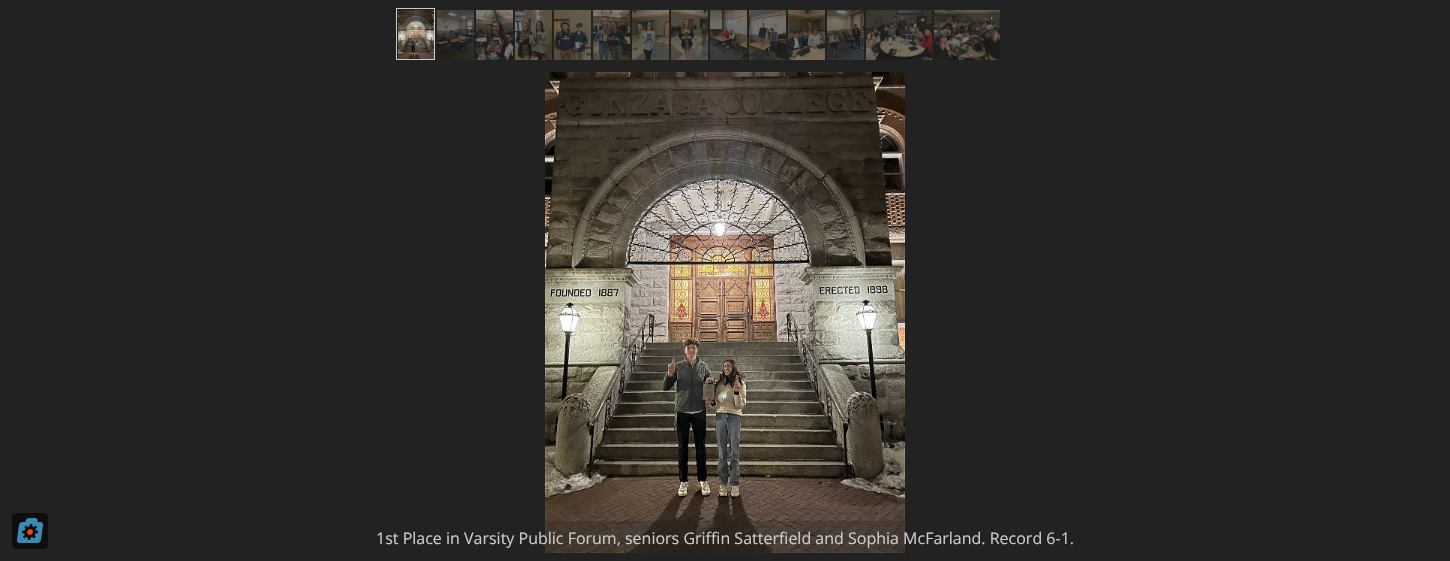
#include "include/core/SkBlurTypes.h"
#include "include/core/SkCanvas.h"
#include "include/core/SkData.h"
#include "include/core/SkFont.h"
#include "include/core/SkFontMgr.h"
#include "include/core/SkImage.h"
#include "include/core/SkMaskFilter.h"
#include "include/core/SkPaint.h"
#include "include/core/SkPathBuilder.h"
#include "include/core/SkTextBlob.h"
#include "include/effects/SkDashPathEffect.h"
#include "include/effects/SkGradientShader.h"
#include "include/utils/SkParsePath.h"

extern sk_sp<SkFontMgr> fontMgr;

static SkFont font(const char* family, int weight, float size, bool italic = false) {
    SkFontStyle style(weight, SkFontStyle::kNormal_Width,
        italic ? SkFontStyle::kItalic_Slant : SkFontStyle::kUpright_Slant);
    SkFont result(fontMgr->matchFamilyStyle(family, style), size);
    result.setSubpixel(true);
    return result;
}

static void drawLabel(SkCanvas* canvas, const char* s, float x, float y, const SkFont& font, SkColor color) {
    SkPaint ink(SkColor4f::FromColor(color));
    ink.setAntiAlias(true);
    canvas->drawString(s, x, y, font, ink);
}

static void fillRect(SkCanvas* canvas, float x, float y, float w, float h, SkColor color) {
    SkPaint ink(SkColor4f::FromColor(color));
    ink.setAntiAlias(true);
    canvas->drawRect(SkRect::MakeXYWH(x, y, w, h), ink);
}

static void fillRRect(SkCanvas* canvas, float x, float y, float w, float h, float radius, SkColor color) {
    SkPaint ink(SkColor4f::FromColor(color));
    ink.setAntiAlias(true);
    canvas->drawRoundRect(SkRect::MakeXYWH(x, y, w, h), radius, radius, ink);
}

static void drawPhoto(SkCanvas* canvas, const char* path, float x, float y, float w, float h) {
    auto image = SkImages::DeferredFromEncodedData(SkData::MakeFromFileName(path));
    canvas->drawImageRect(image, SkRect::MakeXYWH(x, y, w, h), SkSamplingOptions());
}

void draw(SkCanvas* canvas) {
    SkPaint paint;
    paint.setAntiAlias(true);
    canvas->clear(0xFF222222);
    paint.setStroke(true);
    paint.setStrokeWidth(1);
    paint.setColor(0xFFCCCCCC);
    canvas->drawRect(SkRect::MakeXYWH(396.5f, 8.5f, 38, 51), paint);
    drawPhoto(canvas, "assets/img1.png", 398, 10, 36, 49);
    drawPhoto(canvas, "assets/img2.png", 437, 10, 37, 50);
    drawPhoto(canvas, "assets/img3.png", 476, 10, 37, 50);
    drawPhoto(canvas, "assets/img4.png", 515, 10, 37, 50);
    drawPhoto(canvas, "assets/img5.png", 554, 10, 37, 50);
    drawPhoto(canvas, "assets/img6.png", 593, 10, 37, 50);
    drawPhoto(canvas, "assets/img7.png", 632, 10, 37, 50);
    drawPhoto(canvas, "assets/img8.png", 671, 10, 37, 50);
    drawPhoto(canvas, "assets/img9.png", 710, 10, 37, 50);
    drawPhoto(canvas, "assets/img10.png", 749, 10, 37, 50);
    drawPhoto(canvas, "assets/img11.png", 788, 10, 37, 50);
    drawPhoto(canvas, "assets/img12.png", 827, 10, 37, 50);
    drawPhoto(canvas, "assets/img13.png", 866, 10, 66, 50);
    drawPhoto(canvas, "assets/img14.png", 934, 10, 66, 50);
    fillRRect(canvas, 12, 513, 36, 36, 4, 0xFF0E0E0E);
    drawPhoto(canvas, "assets/img15.png", 16, 518, 27, 25);
    drawPhoto(canvas, "assets/img16.png", 545, 72, 360, 481);
    fillRect(canvas, 545, 521, 360, 32, 0x4D222222);
    SkFont font1 = font("Open Sans", 400, 16);
    drawLabel(canvas, "1st Place in Varsity Public Forum, seniors Griffin Satterfield and Sophia McFarland. Record 6-1.", 376, 544, font1, 0xFFCCCCCC);
}
